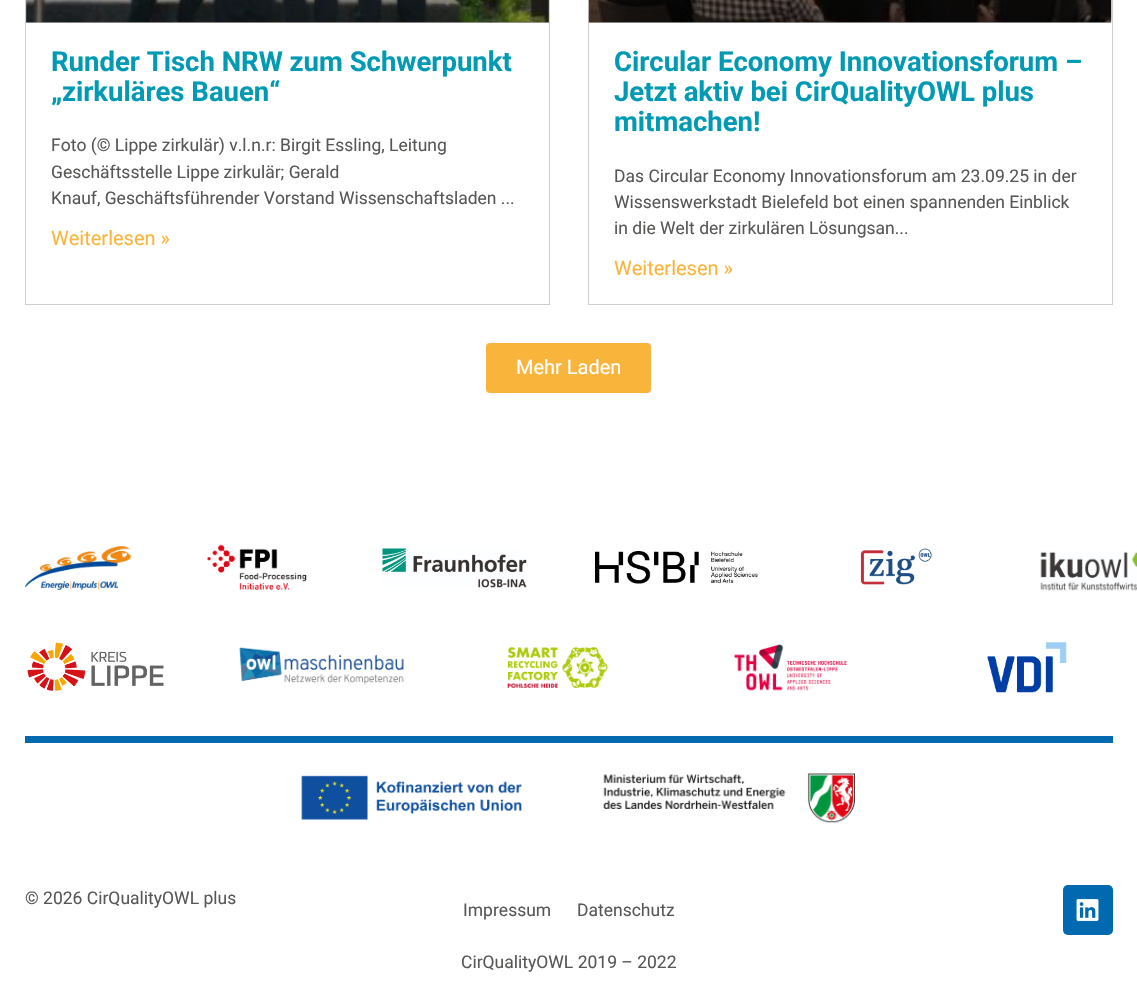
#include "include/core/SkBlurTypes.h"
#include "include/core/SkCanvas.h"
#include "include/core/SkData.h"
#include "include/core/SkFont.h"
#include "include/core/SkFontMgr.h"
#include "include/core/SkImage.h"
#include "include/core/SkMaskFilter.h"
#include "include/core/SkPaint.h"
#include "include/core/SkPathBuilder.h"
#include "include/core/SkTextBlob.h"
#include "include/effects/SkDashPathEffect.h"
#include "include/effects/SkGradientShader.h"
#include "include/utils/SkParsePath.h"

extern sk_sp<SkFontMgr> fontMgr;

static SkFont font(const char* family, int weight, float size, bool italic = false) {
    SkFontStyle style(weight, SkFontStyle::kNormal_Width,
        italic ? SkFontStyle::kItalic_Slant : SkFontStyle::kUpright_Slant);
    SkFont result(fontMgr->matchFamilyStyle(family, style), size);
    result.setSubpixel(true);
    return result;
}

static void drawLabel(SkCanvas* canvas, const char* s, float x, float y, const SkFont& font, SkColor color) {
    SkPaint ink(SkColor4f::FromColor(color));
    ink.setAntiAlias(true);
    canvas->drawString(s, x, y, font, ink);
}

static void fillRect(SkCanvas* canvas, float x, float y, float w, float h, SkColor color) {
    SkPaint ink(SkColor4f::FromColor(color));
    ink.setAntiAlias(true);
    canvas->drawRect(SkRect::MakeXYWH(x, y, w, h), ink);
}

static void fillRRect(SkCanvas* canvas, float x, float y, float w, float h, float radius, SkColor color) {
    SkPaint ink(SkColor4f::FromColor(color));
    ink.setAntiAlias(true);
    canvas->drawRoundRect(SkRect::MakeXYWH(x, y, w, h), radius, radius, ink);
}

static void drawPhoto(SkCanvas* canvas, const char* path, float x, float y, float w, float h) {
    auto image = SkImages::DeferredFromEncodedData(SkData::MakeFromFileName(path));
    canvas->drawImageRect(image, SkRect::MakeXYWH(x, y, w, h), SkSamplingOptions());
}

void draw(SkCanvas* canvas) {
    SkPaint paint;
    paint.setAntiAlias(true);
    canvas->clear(0xFFFFFFFF);
    paint.setStroke(true);
    paint.setStrokeWidth(1);
    paint.setColor(0xFFCECECE);
    canvas->drawRect(SkRect::MakeXYWH(25.5f, -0.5f, 524, 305), paint);
    drawPhoto(canvas, "assets/img1.png", 26, 0, 523, 23);
    paint.setStroke(false);
    {
        const SkColor colors[] = {0x59000000, 0x00000000};
        const float stops[] = {0, 0.75f};
        const SkPoint ends[] = {{288, 23}, {288, -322}};
        paint.setShader(SkGradientShader::MakeLinear(ends, colors, stops, 2, SkTileMode::kClamp));
        paint.setAlpha(255);
    }
    canvas->drawRect(SkRect::MakeXYWH(26, 0, 523, 23), paint);
    SkFont font1 = font("Roboto", 700, 27.5f);
    drawLabel(canvas, "Runder Tisch NRW zum Schwerpunkt", 51, 71, font1, 0xFF009AB4);
    drawLabel(canvas, "„zirkuläres Bauen“", 51, 101, font1, 0xFF009AB4);
    SkFont font2 = font("Roboto", 400, 17.5f);
    drawLabel(canvas, "Foto (© Lippe zirkulär) v.l.n.r: Birgit Essling, Leitung", 51, 151, font2, 0xFF575756);
    drawLabel(canvas, "Geschäftsstelle Lippe zirkulär; Gerald", 51, 178, font2, 0xFF575756);
    drawLabel(canvas, "Knauf, Geschäftsführender Vorstand Wissenschaftsladen ...", 51, 204, font2, 0xFF575756);
    SkFont font3 = font("Roboto", 400, 20);
    drawLabel(canvas, "Weiterlesen »", 51, 245, font3, 0xFFF9B53B);
    paint.setStroke(true);
    paint.setShader(nullptr);
    paint.setColor(0xFFCECECE);
    canvas->drawRect(SkRect::MakeXYWH(588.5f, -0.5f, 524, 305), paint);
    drawPhoto(canvas, "assets/img2.png", 588, 0, 524, 23);
    paint.setStroke(false);
    {
        const SkColor colors[] = {0x59000000, 0x00000000};
        const float stops[] = {0, 0.75f};
        const SkPoint ends[] = {{850, 23}, {850, -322}};
        paint.setShader(SkGradientShader::MakeLinear(ends, colors, stops, 2, SkTileMode::kClamp));
        paint.setAlpha(255);
    }
    canvas->drawRect(SkRect::MakeXYWH(589, 0, 522, 23), paint);
    drawLabel(canvas, "Circular Economy Innovationsforum –", 614, 71, font1, 0xFF009AB4);
    drawLabel(canvas, "Jetzt aktiv bei CirQualityOWL plus", 614, 101, font1, 0xFF009AB4);
    drawLabel(canvas, "mitmachen!", 614, 131, font1, 0xFF009AB4);
    drawLabel(canvas, "Das Circular Economy Innovationsforum am 23.09.25 in der", 614, 182, font2, 0xFF575756);
    drawLabel(canvas, "Wissenswerkstadt Bielefeld bot einen spannenden Einblick", 614, 208, font2, 0xFF575756);
    drawLabel(canvas, "in die Welt der zirkulären Lösungsan...", 614, 234, font2, 0xFF575756);
    drawLabel(canvas, "Weiterlesen »", 614, 275, font3, 0xFFF9B53B);
    fillRRect(canvas, 486, 343, 165, 50, 4, 0xFFF9B53B);
    drawLabel(canvas, "Mehr Laden", 516, 374, font3, 0xFFFFFFFF);
    drawPhoto(canvas, "assets/img3.png", 25, 546, 107, 44);
    drawPhoto(canvas, "assets/img4.png", 207, 544, 100, 46);
    drawPhoto(canvas, "assets/img5.png", 382, 548, 145, 40);
    drawPhoto(canvas, "assets/img6.png", 595, 551, 163, 33);
    drawPhoto(canvas, "assets/img7.png", 860, 548, 72, 37);
    drawPhoto(canvas, "assets/img8.png", 1040, 551, 97, 40);
    drawPhoto(canvas, "assets/img9.png", 27, 642, 137, 49);
    drawPhoto(canvas, "assets/img10.png", 239, 647, 165, 38);
    drawPhoto(canvas, "assets/img11.png", 507, 646, 101, 43);
    drawPhoto(canvas, "assets/img12.png", 733, 644, 115, 47);
    drawPhoto(canvas, "assets/img13.png", 987, 642, 80, 51);
    fillRect(canvas, 25, 736, 1088, 7, 0xFF0069AF);
    drawPhoto(canvas, "assets/img14.png", 301, 775, 221, 45);
    drawPhoto(canvas, "assets/img15.png", 603, 773, 252, 50);
    drawLabel(canvas, "© 2026 CirQualityOWL plus", 25, 904, font2, 0xFF575756);
    fillRRect(canvas, 1063, 885, 50, 50, 5, 0xFF0069AF);
    drawPhoto(canvas, "assets/img16.png", 1076, 899, 23, 22);
    drawLabel(canvas, "Impressum", 463, 916, font2, 0xFF575756);
    drawLabel(canvas, "Datenschutz", 577, 916, font2, 0xFF575756);
    drawLabel(canvas, "CirQualityOWL 2019 – 2022", 461, 968, font2, 0xFF575756);
}
